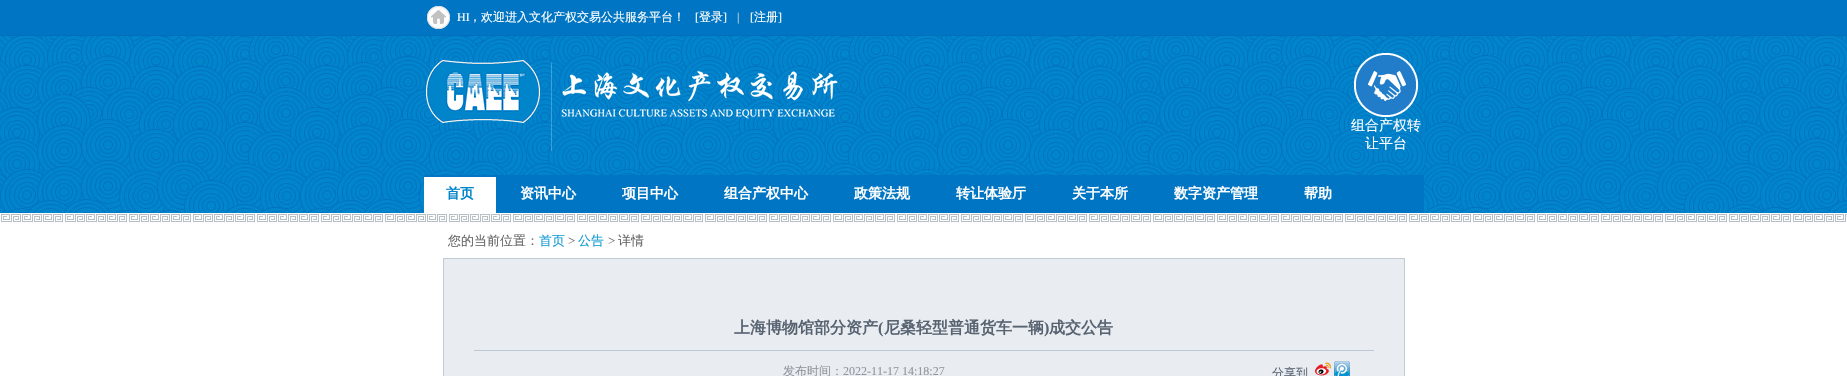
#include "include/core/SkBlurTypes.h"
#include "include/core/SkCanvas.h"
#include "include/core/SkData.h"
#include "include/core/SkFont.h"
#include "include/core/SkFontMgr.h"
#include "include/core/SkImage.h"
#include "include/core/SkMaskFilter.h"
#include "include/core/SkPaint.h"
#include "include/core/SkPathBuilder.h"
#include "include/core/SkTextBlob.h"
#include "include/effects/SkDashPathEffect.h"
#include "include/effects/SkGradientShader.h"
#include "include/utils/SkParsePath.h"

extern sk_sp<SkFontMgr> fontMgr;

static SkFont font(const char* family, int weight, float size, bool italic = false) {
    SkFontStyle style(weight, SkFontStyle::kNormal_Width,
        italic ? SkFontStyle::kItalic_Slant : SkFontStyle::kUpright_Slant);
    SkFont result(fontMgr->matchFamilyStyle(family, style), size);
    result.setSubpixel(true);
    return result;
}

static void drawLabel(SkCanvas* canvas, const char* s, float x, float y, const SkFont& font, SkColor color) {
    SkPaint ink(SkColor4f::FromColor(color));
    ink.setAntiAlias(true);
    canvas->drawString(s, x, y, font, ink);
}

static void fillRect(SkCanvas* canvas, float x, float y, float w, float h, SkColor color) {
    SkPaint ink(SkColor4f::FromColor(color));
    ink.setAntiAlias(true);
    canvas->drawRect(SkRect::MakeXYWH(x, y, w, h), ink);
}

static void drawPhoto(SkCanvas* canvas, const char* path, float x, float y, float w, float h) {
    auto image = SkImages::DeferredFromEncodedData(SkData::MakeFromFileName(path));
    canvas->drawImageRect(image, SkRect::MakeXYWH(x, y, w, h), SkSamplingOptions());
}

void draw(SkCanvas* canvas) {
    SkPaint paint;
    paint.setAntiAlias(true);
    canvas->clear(0xFFFFFFFF);
    fillRect(canvas, 0, 0, 1847, 35, 0xFF0075C3);
    fillRect(canvas, 0, 35, 1847, 1, 0xFF006FB9);
    drawPhoto(canvas, "assets/img1.png", 427, 6, 23, 23);
    SkFont font1 = font("Liberation Serif", 400, 12);
    drawLabel(canvas, "HI", 457, 21, font1, 0xFFFFFFFF);
    SkFont font2 = font("WenQuanYi Zen Hei", 500, 12);
    drawLabel(canvas, "，欢迎进入文化产权交易公共服务平台！", 469, 21, font2, 0xFFFFFFFF);
    drawLabel(canvas, "[", 695, 21, font1, 0xFFFFFFFF);
    drawLabel(canvas, "登录", 699, 21, font2, 0xFFFFFFFF);
    drawLabel(canvas, "]", 723, 21, font1, 0xFFFFFFFF);
    drawLabel(canvas, "|", 737, 21, font1, 0xFFDFDFDF);
    drawLabel(canvas, "[", 750, 21, font1, 0xFFFFFFFF);
    drawLabel(canvas, "注册", 754, 21, font2, 0xFFFFFFFF);
    drawLabel(canvas, "]", 778, 21, font1, 0xFFFFFFFF);
    drawPhoto(canvas, "assets/img2.png", 0, 36, 1847, 177);
    drawPhoto(canvas, "assets/img3.png", 426, 60, 412, 91);
    drawPhoto(canvas, "assets/img4.png", 1354, 53, 64, 64);
    SkFont font3 = font("WenQuanYi Zen Hei", 500, 14);
    drawLabel(canvas, "组合产权转", 1351, 130, font3, 0xFFFFFFFF);
    drawLabel(canvas, "让平台", 1365, 148, font3, 0xFFFFFFFF);
    drawPhoto(canvas, "assets/img5.png", 0, 213, 1847, 10);
    fillRect(canvas, 424, 175, 1000, 38, 0xFF0075C3);
    fillRect(canvas, 424, 177, 72, 37, 0xFFFFFFFF);
    SkFont font4 = font("WenQuanYi Zen Hei", 700, 14);
    drawLabel(canvas, "首页", 446, 198, font4, 0xFF0085CA);
    drawLabel(canvas, "资讯中心", 520, 198, font4, 0xFFFFFFFF);
    drawLabel(canvas, "项目中心", 622, 198, font4, 0xFFFFFFFF);
    drawLabel(canvas, "组合产权中心", 724, 198, font4, 0xFFFFFFFF);
    drawLabel(canvas, "政策法规", 854, 198, font4, 0xFFFFFFFF);
    drawLabel(canvas, "转让体验厅", 956, 198, font4, 0xFFFFFFFF);
    drawLabel(canvas, "关于本所", 1072, 198, font4, 0xFFFFFFFF);
    drawLabel(canvas, "数字资产管理", 1174, 198, font4, 0xFFFFFFFF);
    drawLabel(canvas, "帮助", 1304, 198, font4, 0xFFFFFFFF);
    SkFont font5 = font("WenQuanYi Zen Hei", 500, 13);
    drawLabel(canvas, "您的当前位置：", 448, 245, font5, 0xFF666666);
    drawLabel(canvas, "首页", 539, 245, font5, 0xFF169CD3);
    SkFont font6 = font("Liberation Serif", 400, 13);
    drawLabel(canvas, ">", 568, 245, font6, 0xFF666666);
    drawLabel(canvas, "公告", 578, 245, font5, 0xFF169CD3);
    drawLabel(canvas, ">", 608, 245, font6, 0xFF666666);
    drawLabel(canvas, "详情", 618, 245, font5, 0xFF666666);
    paint.setColor(0xFFE9EDF1);
    canvas->drawRect(SkRect::MakeXYWH(443.5f, 258.5f, 961, 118), paint);
    paint.setStroke(true);
    paint.setStrokeWidth(1);
    paint.setColor(0xFFC2CBD5);
    canvas->drawRect(SkRect::MakeXYWH(443.5f, 258.5f, 961, 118), paint);
    fillRect(canvas, 474, 350, 900, 1, 0xFFBDC8D7);
    SkFont font7 = font("WenQuanYi Zen Hei", 700, 16);
    drawLabel(canvas, "上海博物馆部分资产", 734, 333, font7, 0xFF586371);
    SkFont font8 = font("Liberation Serif", 700, 16);
    drawLabel(canvas, "(", 878, 333, font8, 0xFF586371);
    drawLabel(canvas, "尼桑轻型普通货车一辆", 884, 333, font7, 0xFF586371);
    drawLabel(canvas, ")", 1044, 333, font8, 0xFF586371);
    drawLabel(canvas, "成交公告", 1049, 333, font7, 0xFF586371);
    drawLabel(canvas, "发布时间：", 783, 375, font2, 0xFF90969D);
    drawLabel(canvas, "2022-11-17 14:18:27", 843, 375, font1, 0xFF90969D);
    drawLabel(canvas, "分享到", 1272, 377, font2, 0xFF586371);
    drawPhoto(canvas, "assets/img6.png", 1315, 362, 16, 14);
    drawPhoto(canvas, "assets/img7.png", 1334, 361, 16, 15);
}
